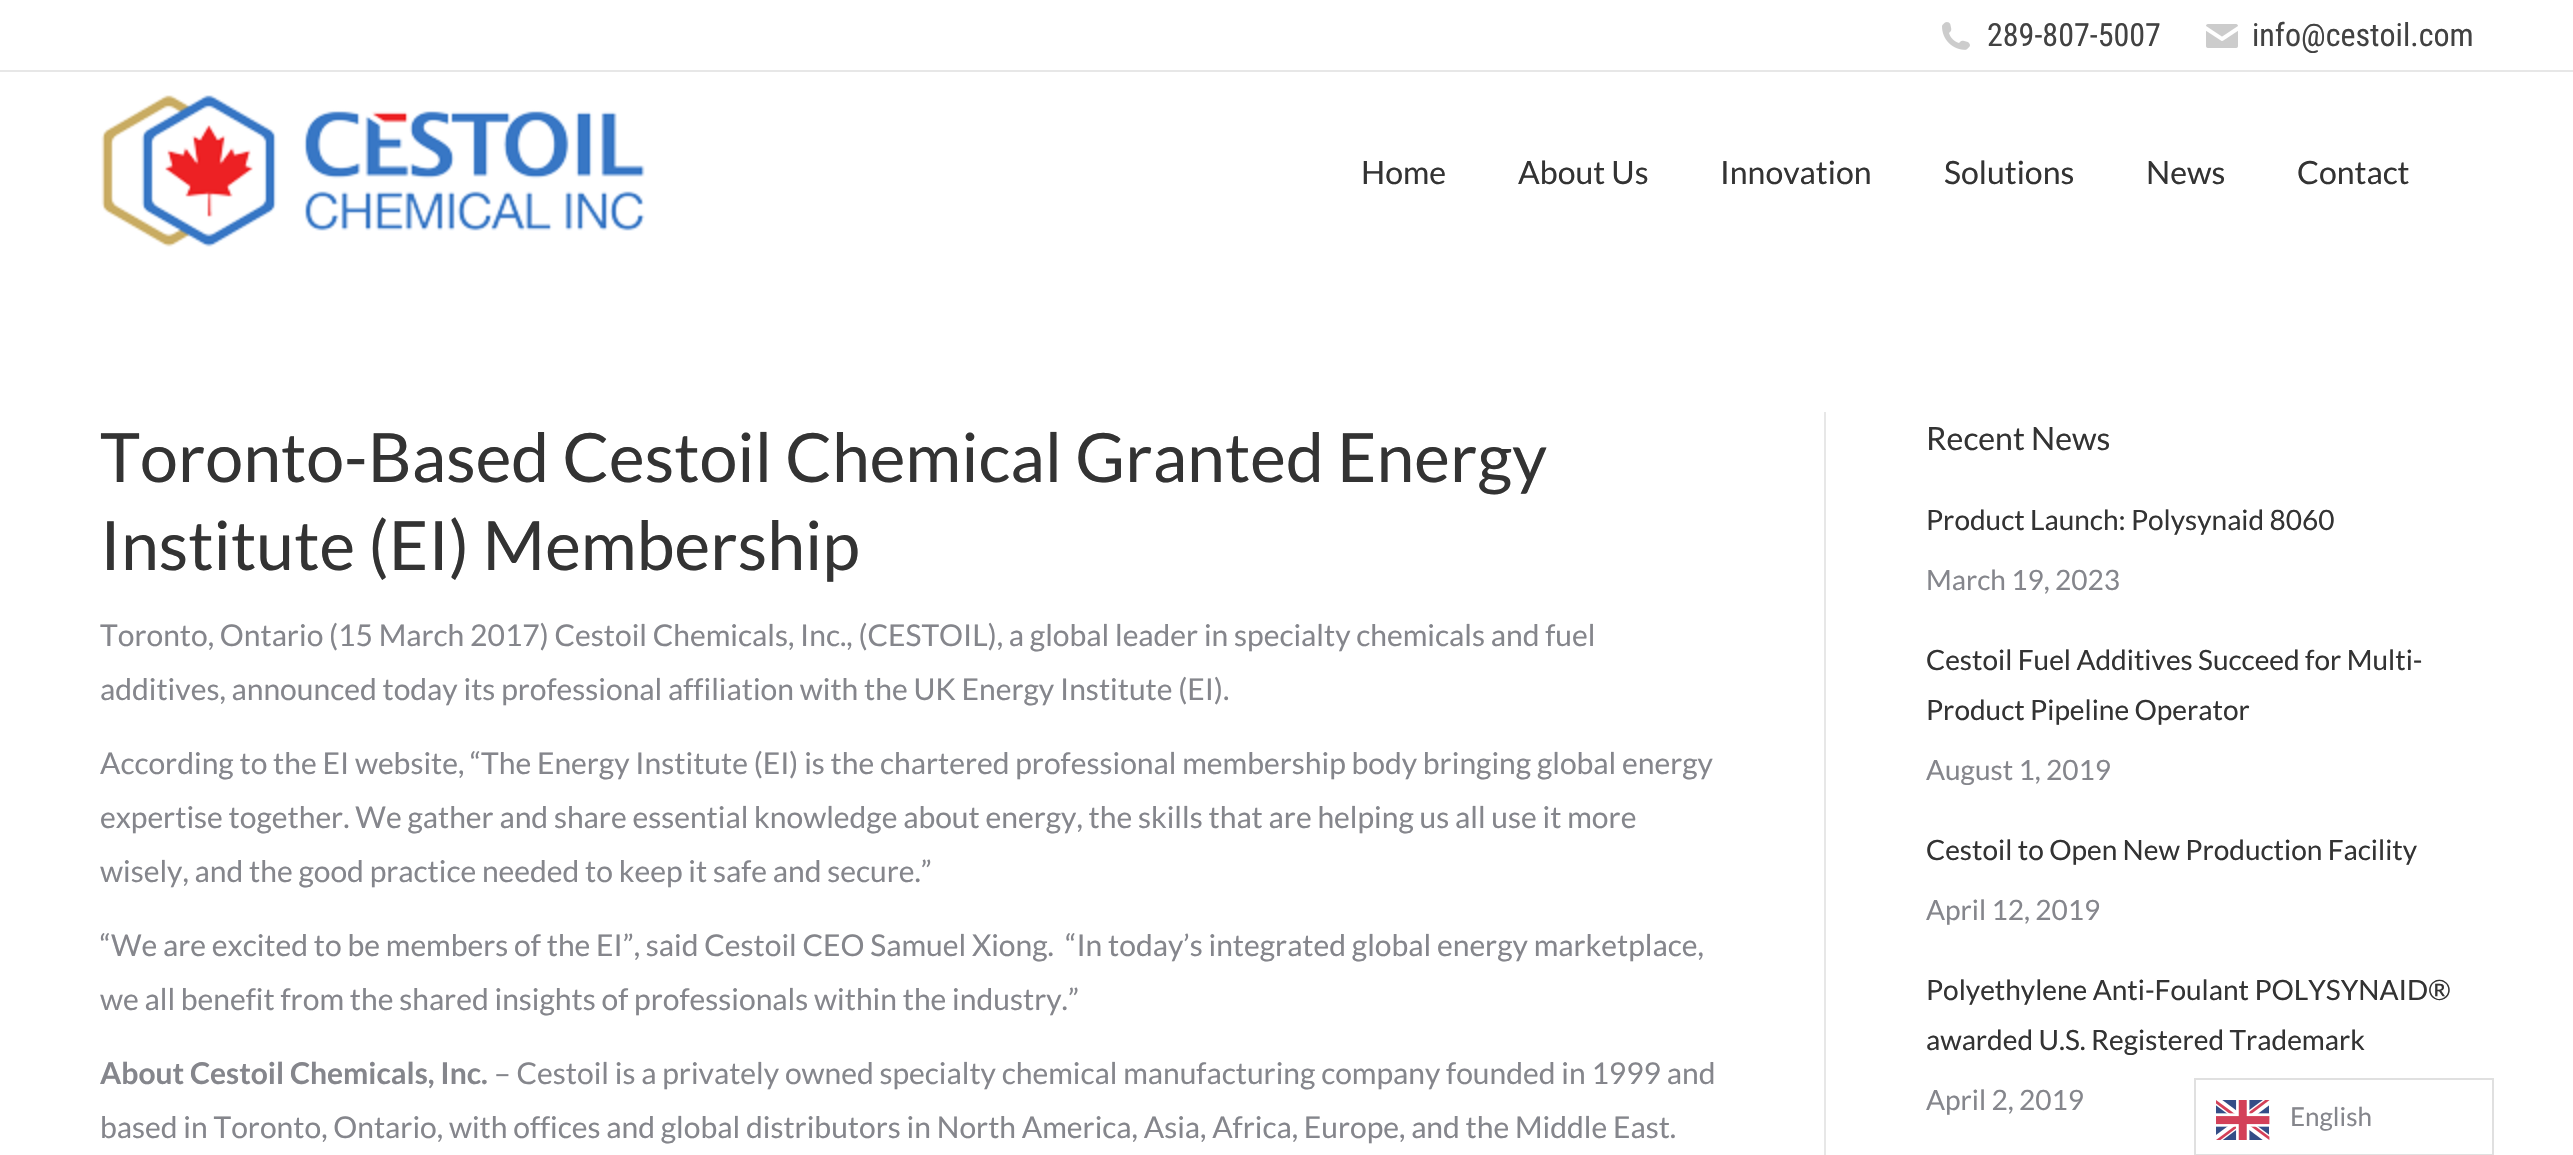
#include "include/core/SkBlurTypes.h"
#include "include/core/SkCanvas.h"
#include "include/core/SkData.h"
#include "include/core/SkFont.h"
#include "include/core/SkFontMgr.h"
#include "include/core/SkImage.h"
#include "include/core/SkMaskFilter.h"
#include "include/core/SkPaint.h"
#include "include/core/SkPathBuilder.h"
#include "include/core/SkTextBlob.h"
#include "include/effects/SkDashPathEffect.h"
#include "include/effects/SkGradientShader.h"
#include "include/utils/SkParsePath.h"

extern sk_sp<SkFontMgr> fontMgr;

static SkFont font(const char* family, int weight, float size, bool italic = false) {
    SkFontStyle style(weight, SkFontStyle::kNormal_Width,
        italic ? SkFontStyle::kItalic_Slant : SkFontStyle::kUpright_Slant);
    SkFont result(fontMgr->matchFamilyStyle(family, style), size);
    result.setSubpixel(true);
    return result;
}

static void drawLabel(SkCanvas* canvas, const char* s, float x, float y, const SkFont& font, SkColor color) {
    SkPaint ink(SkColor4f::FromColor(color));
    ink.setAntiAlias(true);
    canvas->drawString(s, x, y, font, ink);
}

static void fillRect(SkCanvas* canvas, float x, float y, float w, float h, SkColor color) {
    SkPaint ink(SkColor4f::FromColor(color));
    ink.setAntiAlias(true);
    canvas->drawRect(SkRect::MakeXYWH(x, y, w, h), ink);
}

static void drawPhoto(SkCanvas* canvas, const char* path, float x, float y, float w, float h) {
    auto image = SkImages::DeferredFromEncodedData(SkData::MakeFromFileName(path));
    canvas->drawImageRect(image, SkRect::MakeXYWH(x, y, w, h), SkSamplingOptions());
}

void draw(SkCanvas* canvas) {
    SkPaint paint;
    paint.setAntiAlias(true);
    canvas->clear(0xFFFFFFFF);
    drawPhoto(canvas, "assets/img1.png", 1942, 22, 28, 28);
    SkFont font1 = font("Roboto Condensed", 400, 32);
    drawLabel(canvas, "289-807-5007", 1987, 46, font1, 0xFF424242);
    drawPhoto(canvas, "assets/img2.png", 2206, 24, 32, 24);
    drawLabel(canvas, "info@cestoil.com", 2252, 46, font1, 0xFF424242);
    fillRect(canvas, 0, 70, 2573, 2, 0xFFE7E7E7);
    drawPhoto(canvas, "assets/img3.png", 101, 95, 544, 152);
    SkFont font2 = font("Lato", 400, 32);
    drawLabel(canvas, "Home", 1361, 184, font2, 0xFF333333);
    drawLabel(canvas, "About Us", 1518, 184, font2, 0xFF333333);
    drawLabel(canvas, "Innovation", 1720, 184, font2, 0xFF333333);
    drawLabel(canvas, "Solutions", 1944, 184, font2, 0xFF333333);
    drawLabel(canvas, "News", 2146, 184, font2, 0xFF333333);
    drawLabel(canvas, "Contact", 2297, 184, font2, 0xFF333333);
    SkFont font3 = font("Lato", 400, 68);
    drawLabel(canvas, "Toronto-Based Cestoil Chemical Granted Energy", 100, 482, font3, 0xFF333333);
    drawLabel(canvas, "Institute (EI) Membership", 100, 570, font3, 0xFF333333);
    SkFont font4 = font("Lato", 400, 30);
    drawLabel(canvas, "Toronto, Ontario (15 March 2017) Cestoil Chemicals, Inc., (CESTOIL), a global leader in specialty chemicals and fuel", 100, 646, font4, 0xFF85868C);
    drawLabel(canvas, "additives, announced today its professional affiliation with the UK Energy Institute (EI).", 100, 700, font4, 0xFF85868C);
    drawLabel(canvas, "According to the EI website, “The Energy Institute (EI) is the chartered professional membership body bringing global energy", 100, 774, font4, 0xFF85868C);
    drawLabel(canvas, "expertise together. We gather and share essential knowledge about energy, the skills that are helping us all use it more", 100, 828, font4, 0xFF85868C);
    drawLabel(canvas, "wisely, and the good practice needed to keep it safe and secure.”", 100, 882, font4, 0xFF85868C);
    drawLabel(canvas, "“We are excited to be members of the EI”, said Cestoil CEO Samuel Xiong.  “In today’s integrated global energy marketplace,", 100, 956, font4, 0xFF85868C);
    drawLabel(canvas, "we all benefit from the shared insights of professionals within the industry.”", 100, 1010, font4, 0xFF85868C);
    SkFont font5 = font("Lato", 700, 30);
    drawLabel(canvas, "About Cestoil Chemicals, Inc.", 100, 1084, font5, 0xFF85868C);
    drawLabel(canvas, "– Cestoil is a privately owned specialty chemical manufacturing company founded in 1999 and", 494, 1084, font4, 0xFF85868C);
    drawLabel(canvas, "based in Toronto, Ontario, with offices and global distributors in North America, Asia, Africa, Europe, and the Middle East.", 100, 1138, font4, 0xFF85868C);
    fillRect(canvas, 1824, 412, 2, 743, 0xFFE7E7E7);
    drawLabel(canvas, "Recent News", 1926, 450, font2, 0xFF333333);
    SkFont font6 = font("Lato", 400, 28);
    drawLabel(canvas, "Product Launch: Polysynaid 8060", 1926, 530, font6, 0xFF333333);
    drawLabel(canvas, "March 19, 2023", 1926, 590, font6, 0xFF85868C);
    drawLabel(canvas, "Cestoil Fuel Additives Succeed for Multi-", 1926, 670, font6, 0xFF333333);
    drawLabel(canvas, "Product Pipeline Operator", 1926, 720, font6, 0xFF333333);
    drawLabel(canvas, "August 1, 2019", 1926, 780, font6, 0xFF85868C);
    drawLabel(canvas, "Cestoil to Open New Production Facility", 1926, 860, font6, 0xFF333333);
    drawLabel(canvas, "April 12, 2019", 1926, 920, font6, 0xFF85868C);
    drawLabel(canvas, "Polyethylene Anti-Foulant POLYSYNAID®", 1926, 1000, font6, 0xFF333333);
    drawLabel(canvas, "awarded U.S. Registered Trademark", 1926, 1050, font6, 0xFF333333);
    drawLabel(canvas, "April 2, 2019", 1926, 1110, font6, 0xFF85868C);
    paint.setStroke(true);
    paint.setStrokeWidth(2);
    paint.setColor(0xFFE0E0E0);
    canvas->drawRect(SkRect::MakeXYWH(2195, 1079, 298, 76), paint);
    drawPhoto(canvas, "assets/img4.png", 2216, 1100, 54, 40);
    SkFont font7 = font("Lato", 400, 26);
    drawLabel(canvas, "English", 2290, 1126, font7, 0xFF85868C);
}
